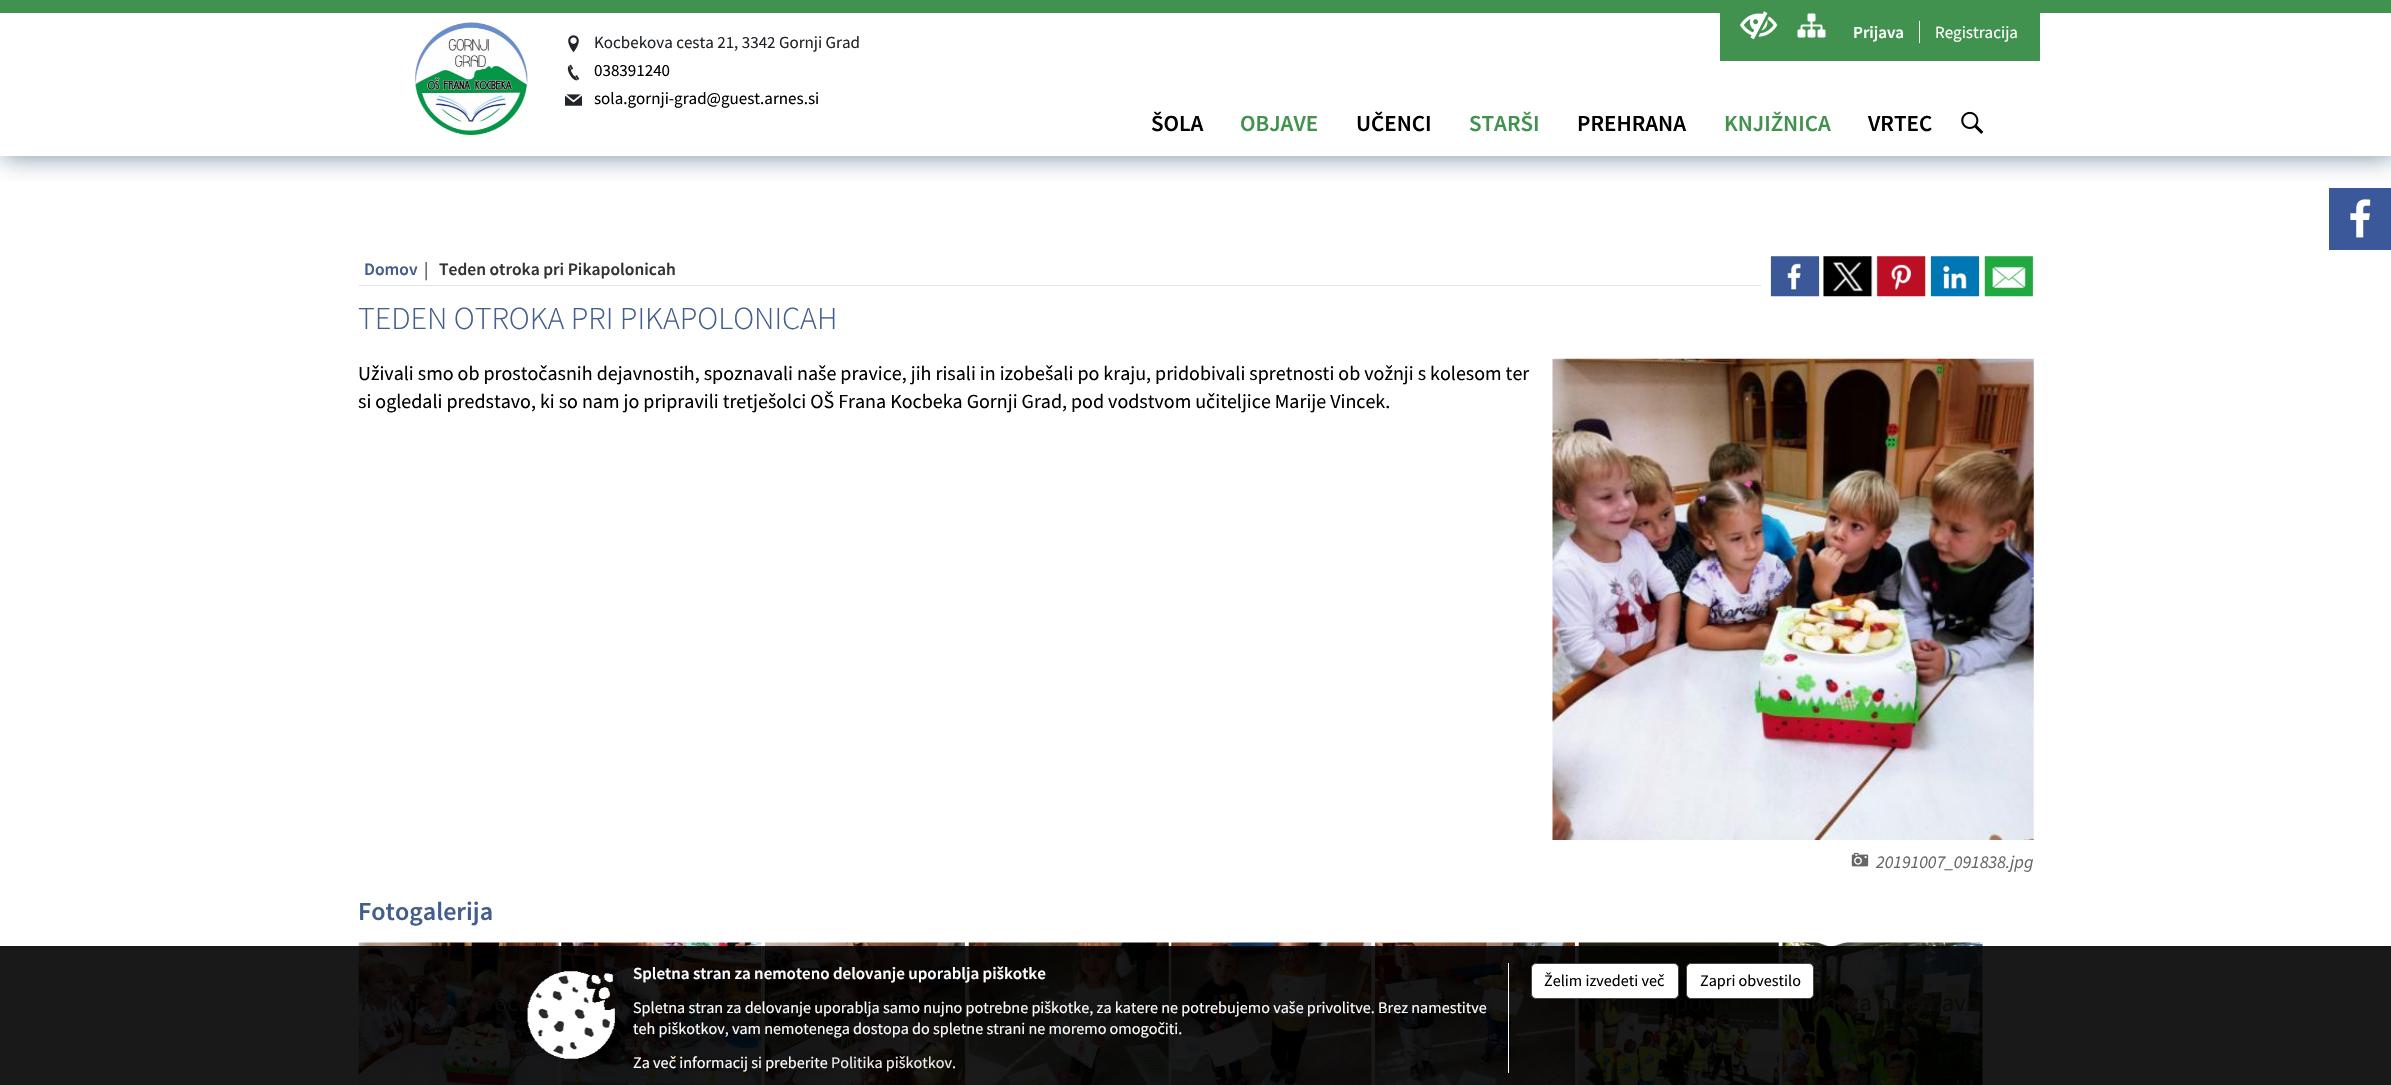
#include "include/core/SkBlurTypes.h"
#include "include/core/SkCanvas.h"
#include "include/core/SkData.h"
#include "include/core/SkFont.h"
#include "include/core/SkFontMgr.h"
#include "include/core/SkImage.h"
#include "include/core/SkMaskFilter.h"
#include "include/core/SkPaint.h"
#include "include/core/SkPathBuilder.h"
#include "include/core/SkTextBlob.h"
#include "include/effects/SkDashPathEffect.h"
#include "include/effects/SkGradientShader.h"
#include "include/utils/SkParsePath.h"

extern sk_sp<SkFontMgr> fontMgr;

static SkFont font(const char* family, int weight, float size, bool italic = false) {
    SkFontStyle style(weight, SkFontStyle::kNormal_Width,
        italic ? SkFontStyle::kItalic_Slant : SkFontStyle::kUpright_Slant);
    SkFont result(fontMgr->matchFamilyStyle(family, style), size);
    result.setSubpixel(true);
    return result;
}

static void drawLabel(SkCanvas* canvas, const char* s, float x, float y, const SkFont& font, SkColor color) {
    SkPaint ink(SkColor4f::FromColor(color));
    ink.setAntiAlias(true);
    canvas->drawString(s, x, y, font, ink);
}

static void fillRect(SkCanvas* canvas, float x, float y, float w, float h, SkColor color) {
    SkPaint ink(SkColor4f::FromColor(color));
    ink.setAntiAlias(true);
    canvas->drawRect(SkRect::MakeXYWH(x, y, w, h), ink);
}

static void drawPhoto(SkCanvas* canvas, const char* path, float x, float y, float w, float h) {
    auto image = SkImages::DeferredFromEncodedData(SkData::MakeFromFileName(path));
    canvas->drawImageRect(image, SkRect::MakeXYWH(x, y, w, h), SkSamplingOptions());
}

void draw(SkCanvas* canvas) {
    SkPaint paint;
    paint.setAntiAlias(true);
    canvas->clear(0xFFFFFFFF);
    fillRect(canvas, 0, 946, 2391, 139, 0xFF191919);
    fillRect(canvas, 2329, 188, 62, 62, 0xFF3B589B);
    canvas->save();
    canvas->clipRect(SkRect::MakeXYWH(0, 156, 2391, 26));
    paint.setColor(0xFF71899F);
    paint.setMaskFilter(SkMaskFilter::MakeBlur(kNormal_SkBlurStyle, 12.5f));
    canvas->drawRect(SkRect::MakeXYWH(3, 0, 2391, 156), paint);
    paint.setMaskFilter(nullptr);
    canvas->restore();
    drawPhoto(canvas, "assets/img1.png", 415, 22, 113, 113);
    drawPhoto(canvas, "assets/img2.png", 568, 35, 11, 18);
    SkFont font1 = font("Source Sans Pro", 400, 17);
    drawLabel(canvas, "Kocbekova cesta 21, 3342 Gornji Grad", 594, 48, font1, 0xFF212529);
    drawPhoto(canvas, "assets/img3.png", 567, 64, 13, 17);
    drawLabel(canvas, "038391240", 594, 76, font1, 0xFF000000);
    drawPhoto(canvas, "assets/img4.png", 565, 94, 17, 12);
    drawLabel(canvas, "sola.gornji-grad@guest.arnes.si", 594, 104, font1, 0xFF000000);
    SkFont font2 = font("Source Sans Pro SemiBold", 600, 23);
    drawLabel(canvas, "ŠOLA", 1151, 131, font2, 0xFF000000);
    drawLabel(canvas, "OBJAVE", 1240, 131, font2, 0xFF42924F);
    drawLabel(canvas, "UČENCI", 1356, 131, font2, 0xFF000000);
    drawLabel(canvas, "STARŠI", 1469, 131, font2, 0xFF42924F);
    drawLabel(canvas, "PREHRANA", 1577, 131, font2, 0xFF000000);
    drawLabel(canvas, "KNJIŽNICA", 1724, 131, font2, 0xFF42924F);
    drawLabel(canvas, "VRTEC", 1868, 131, font2, 0xFF000000);
    drawPhoto(canvas, "assets/img5.png", 1961, 111, 23, 23);
    fillRect(canvas, 0, 0, 2391, 13, 0xFF42924F);
    fillRect(canvas, 1720, 13, 320, 48, 0xFF42924F);
    drawPhoto(canvas, "assets/img6.png", 1740, 11, 38, 29);
    drawPhoto(canvas, "assets/img7.png", 1797, 13, 29, 25);
    SkFont font3 = font("Source Sans Pro SemiBold", 600, 17);
    drawLabel(canvas, "Prijava", 1853, 38, font3, 0xFFFFFFFF);
    fillRect(canvas, 1919, 21, 1, 22, 0xFFFFFFFF);
    drawLabel(canvas, "Registracija", 1935, 38, font1, 0xFFFFFFFF);
    drawPhoto(canvas, "assets/img8.png", 2350, 199, 21, 39);
    fillRect(canvas, 359, 285, 1402, 1, 0xFFE3E4E5);
    SkFont font4 = font("Source Sans Pro SemiBold", 600, 17.5f);
    drawLabel(canvas, "Domov", 364, 275, font4, 0xFF435D8D);
    SkFont font5 = font("Liberation Serif", 700, 20);
    drawLabel(canvas, "|", 424, 276, font5, 0xFF666666);
    drawLabel(canvas, "Teden otroka pri Pikapolonicah", 439, 275, font4, 0xFF333333);
    fillRect(canvas, 1770, 256, 50, 40, 0xFFEFEFEF);
    drawPhoto(canvas, "assets/img9.png", 1771, 256, 48, 41);
    fillRect(canvas, 1823, 256, 50, 40, 0xFFEFEFEF);
    drawPhoto(canvas, "assets/img10.png", 1823, 256, 49, 41);
    fillRect(canvas, 1876, 256, 50, 40, 0xFFEFEFEF);
    drawPhoto(canvas, "assets/img11.png", 1877, 256, 49, 41);
    fillRect(canvas, 1930, 256, 50, 40, 0xFFEFEFEF);
    drawPhoto(canvas, "assets/img12.png", 1931, 256, 48, 41);
    fillRect(canvas, 1984, 256, 50, 40, 0xFFEFEFEF);
    drawPhoto(canvas, "assets/img13.png", 1984, 256, 49, 41);
    SkFont font6 = font("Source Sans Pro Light", 300, 32);
    drawLabel(canvas, "TEDEN OTROKA PRI PIKAPOLONICAH", 358, 329, font6, 0xFF435D8D);
    SkFont font7 = font("Source Sans Pro", 400, 20);
    drawLabel(canvas, "Uživali smo ob prostočasnih dejavnostih, spoznavali naše pravice, jih risali in izobešali po kraju, pridobivali spretnosti ob vožnji s kolesom ter", 358, 380, font7, 0xFF000000);
    drawLabel(canvas, "si ogledali predstavo, ki so nam jo pripravili tretješolci OŠ Frana Kocbeka Gornji Grad, pod vodstvom učiteljice Marije Vincek.", 358, 408, font7, 0xFF000000);
    drawPhoto(canvas, "assets/img14.png", 1552, 358, 482, 482);
    drawPhoto(canvas, "assets/img15.png", 1851, 852, 18, 15);
    SkFont font8 = font("Source Sans Pro", 400, 18, true);
    drawLabel(canvas, "20191007_091838.jpg", 1876, 868, font8, 0xFF666666);
    SkFont font9 = font("Source Sans Pro SemiBold", 600, 26);
    drawLabel(canvas, "Fotogalerija", 358, 920, font9, 0xFF435D8D);
    drawPhoto(canvas, "assets/img16.png", 358, 942, 201, 143);
    SkFont font10 = font("Source Sans Pro", 400, 25.5f);
    drawLabel(canvas, "Klikni za poveča", 360, 1011, font10, 0xFF0D0A0A);
    drawPhoto(canvas, "assets/img17.png", 561, 942, 201, 143);
    drawLabel(canvas, "kni za povečavo", 591, 1011, font10, 0xFF0D0A0A);
    drawPhoto(canvas, "assets/img18.png", 765, 942, 200, 143);
    drawLabel(canvas, "Klikni za povečavo", 766, 1011, font10, 0xFF0D0A0A);
    drawPhoto(canvas, "assets/img19.png", 968, 942, 201, 143);
    drawPhoto(canvas, "assets/img20.png", 1171, 942, 201, 143);
    drawPhoto(canvas, "assets/img21.png", 1375, 942, 200, 143);
    drawPhoto(canvas, "assets/img22.png", 1578, 942, 201, 143);
    drawLabel(canvas, "Klikni za povečavo", 1580, 1011, font10, 0xFF070604);
    drawPhoto(canvas, "assets/img23.png", 1782, 942, 201, 143);
    drawLabel(canvas, "Klikni za povečavo", 1783, 1011, font10, 0xFF0D0A0A);
    drawPhoto(canvas, "assets/img24.png", 527, 971, 88, 88);
    fillRect(canvas, 1508, 963, 1, 110, 0xFFFFFFFF);
    drawLabel(canvas, "Spletna stran za nemoteno delovanje uporablja piškotke", 633, 979, font3, 0xFFFFFFFF);
    SkFont font11 = font("Source Sans Pro", 400, 16.15f);
    drawLabel(canvas, "Spletna stran za delovanje uporablja samo nujno potrebne piškotke, za katere ne potrebujemo vaše privolitve. Brez namestitve", 633, 1013, font11, 0xFFFFFFFF);
    drawLabel(canvas, "teh piškotkov, vam nemotenega dostopa do spletne strani ne moremo omogočiti.", 633, 1034, font11, 0xFFFFFFFF);
    drawLabel(canvas, "Za več informacij si preberite", 633, 1068, font11, 0xFFFFFFFF);
    drawLabel(canvas, "Politika piškotkov", 831, 1068, font11, 0xFFEEEEEE);
    drawLabel(canvas, ".", 952, 1068, font11, 0xFFFFFFFF);
    paint.setColor(0xFFFFFFFF);
    canvas->drawRoundRect(SkRect::MakeXYWH(1531.5f, 963.5f, 147, 35), 4.5f, 4.5f, paint);
    paint.setStroke(true);
    paint.setStrokeWidth(1);
    paint.setColor(0xFF444444);
    canvas->drawRoundRect(SkRect::MakeXYWH(1531.5f, 963.5f, 147, 35), 4.5f, 4.5f, paint);
    drawLabel(canvas, "Želim izvedeti več", 1544, 986, font11, 0xFF000000);
    paint.setStroke(false);
    paint.setColor(0xFFFFFFFF);
    canvas->drawRoundRect(SkRect::MakeXYWH(1686.5f, 963.5f, 127, 35), 4.5f, 4.5f, paint);
    paint.setStroke(true);
    paint.setColor(0xFF444444);
    canvas->drawRoundRect(SkRect::MakeXYWH(1686.5f, 963.5f, 127, 35), 4.5f, 4.5f, paint);
    drawLabel(canvas, "Zapri obvestilo", 1700, 986, font11, 0xFF000000);
}
